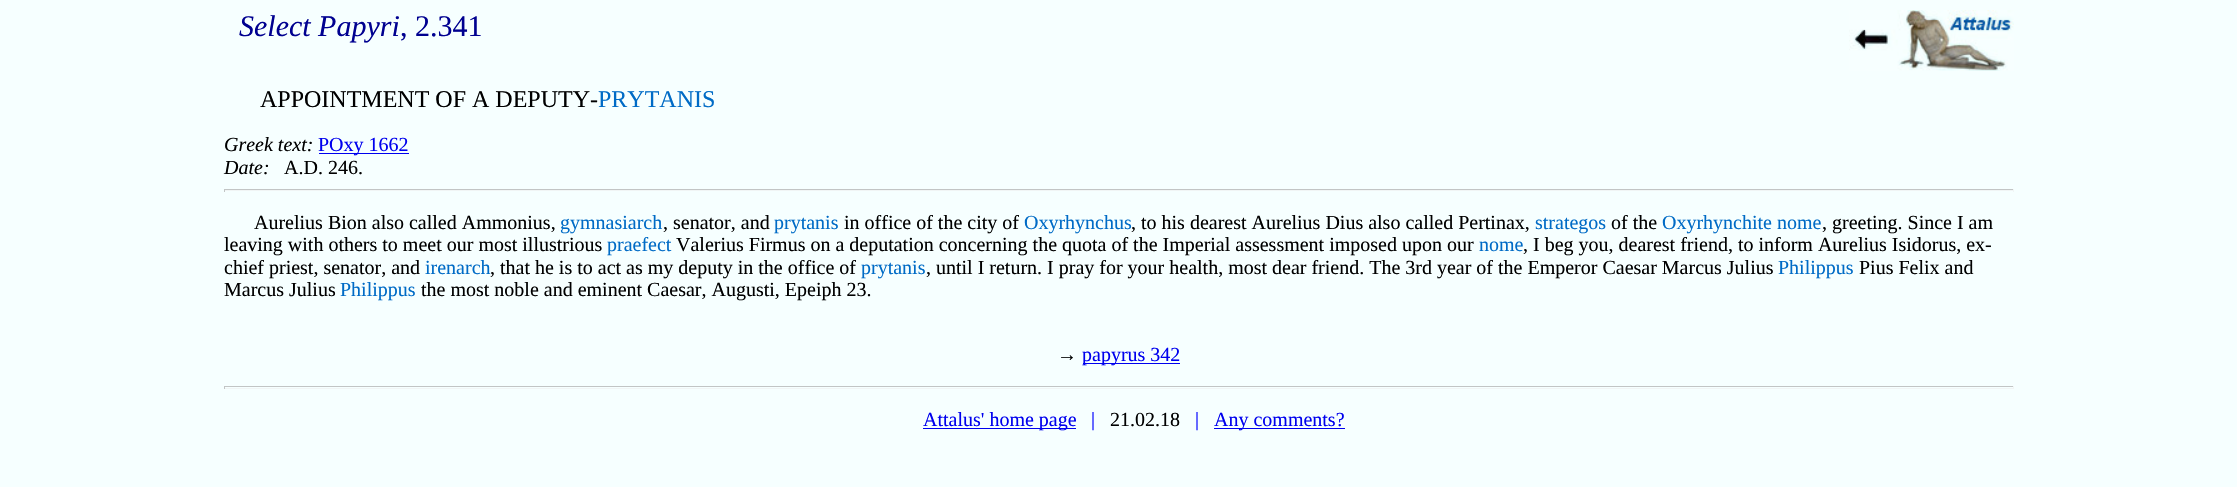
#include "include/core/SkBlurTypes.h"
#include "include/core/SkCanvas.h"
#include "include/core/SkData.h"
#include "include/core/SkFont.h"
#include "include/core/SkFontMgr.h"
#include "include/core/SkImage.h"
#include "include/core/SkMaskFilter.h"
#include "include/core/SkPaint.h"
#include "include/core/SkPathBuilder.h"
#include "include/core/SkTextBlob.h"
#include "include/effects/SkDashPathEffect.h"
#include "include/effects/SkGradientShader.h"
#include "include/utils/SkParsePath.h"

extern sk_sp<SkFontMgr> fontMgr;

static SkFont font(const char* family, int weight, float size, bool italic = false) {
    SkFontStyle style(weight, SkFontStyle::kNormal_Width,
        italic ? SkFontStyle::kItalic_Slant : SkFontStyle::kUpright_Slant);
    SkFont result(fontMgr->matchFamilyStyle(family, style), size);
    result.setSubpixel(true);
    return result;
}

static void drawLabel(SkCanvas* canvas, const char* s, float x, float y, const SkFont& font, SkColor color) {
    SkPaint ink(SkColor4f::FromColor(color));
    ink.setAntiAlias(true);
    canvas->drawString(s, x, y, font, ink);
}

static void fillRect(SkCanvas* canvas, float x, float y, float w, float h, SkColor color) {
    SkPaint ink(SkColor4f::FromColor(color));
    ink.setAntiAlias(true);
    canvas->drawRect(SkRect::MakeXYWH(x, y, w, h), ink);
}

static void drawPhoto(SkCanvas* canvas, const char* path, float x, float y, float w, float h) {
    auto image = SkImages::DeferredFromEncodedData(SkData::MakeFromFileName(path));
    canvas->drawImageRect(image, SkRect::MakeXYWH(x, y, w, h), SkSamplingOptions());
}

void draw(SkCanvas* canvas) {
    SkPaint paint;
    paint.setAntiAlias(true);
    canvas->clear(0xFFF6FFFF);
    SkFont font1 = font("Liberation Serif", 400, 30, true);
    drawLabel(canvas, "Select Papyri", 239, 36, font1, 0xFF000090);
    SkFont font2 = font("Liberation Serif", 400, 30);
    drawLabel(canvas, ", 2.341", 400, 36, font2, 0xFF000090);
    drawPhoto(canvas, "assets/img1.png", 1849, 10, 165, 61);
    SkFont font3 = font("Liberation Serif", 400, 24);
    drawLabel(canvas, "APPOINTMENT OF A DEPUTY-", 260, 107, font3, 0xFF000000);
    drawLabel(canvas, "PRYTANIS", 598, 107, font3, 0xFF006BC6);
    SkFont font4 = font("Liberation Serif", 400, 20, true);
    drawLabel(canvas, "Greek text:", 224, 151, font4, 0xFF000000);
    fillRect(canvas, 319, 153, 90, 1, 0xFF0000EE);
    SkFont font5 = font("Liberation Serif", 400, 20);
    drawLabel(canvas, "POxy 1662", 318, 151, font5, 0xFF0000EE);
    drawLabel(canvas, "Date:", 224, 174, font4, 0xFF000000);
    drawLabel(canvas, "A.D. 246.", 284, 174, font5, 0xFF000000);
    fillRect(canvas, 224, 189, 1790, 1, 0xFFC2C5C5);
    fillRect(canvas, 2013, 189, 1, 3, 0xFFF1F5F5);
    fillRect(canvas, 224, 190, 1790, 1, 0xFFF1F5F5);
    fillRect(canvas, 224, 189, 1, 3, 0xFFC2C5C5);
    drawLabel(canvas, "Aurelius Bion also called Ammonius,", 254, 229, font5, 0xFF000000);
    drawLabel(canvas, "gymnasiarch", 560, 229, font5, 0xFF006BC6);
    drawLabel(canvas, ", senator, and", 663, 229, font5, 0xFF000000);
    drawLabel(canvas, "prytanis", 774, 229, font5, 0xFF006BC6);
    drawLabel(canvas, "in office of the city of", 844, 229, font5, 0xFF000000);
    drawLabel(canvas, "Oxyrhynchus", 1024, 229, font5, 0xFF006BC6);
    drawLabel(canvas, ", to his dearest Aurelius Dius also called Pertinax,", 1131, 229, font5, 0xFF000000);
    drawLabel(canvas, "strategos", 1535, 229, font5, 0xFF006BC6);
    drawLabel(canvas, "of the", 1611, 229, font5, 0xFF000000);
    drawLabel(canvas, "Oxyrhynchite nome", 1662, 229, font5, 0xFF006BC6);
    drawLabel(canvas, ", greeting. Since I am", 1822, 229, font5, 0xFF000000);
    drawLabel(canvas, "leaving with others to meet our most illustrious", 224, 251, font5, 0xFF000000);
    drawLabel(canvas, "praefect", 607, 251, font5, 0xFF006BC6);
    drawLabel(canvas, "Valerius Firmus on a deputation concerning the quota of the Imperial assessment imposed upon our", 676, 251, font5, 0xFF000000);
    drawLabel(canvas, "nome", 1479, 251, font5, 0xFF006BC6);
    drawLabel(canvas, ", I beg you, dearest friend, to inform Aurelius Isidorus, ex-", 1523, 251, font5, 0xFF000000);
    drawLabel(canvas, "chief priest, senator, and", 224, 274, font5, 0xFF000000);
    drawLabel(canvas, "irenarch", 425, 274, font5, 0xFF006BC6);
    drawLabel(canvas, ", that he is to act as my deputy in the office of", 490, 274, font5, 0xFF000000);
    drawLabel(canvas, "prytanis", 861, 274, font5, 0xFF006BC6);
    drawLabel(canvas, ", until I return. I pray for your health, most dear friend. The 3rd year of the Emperor Caesar Marcus Julius", 926, 274, font5, 0xFF000000);
    drawLabel(canvas, "Philippus", 1778, 274, font5, 0xFF006BC6);
    drawLabel(canvas, "Pius Felix and", 1859, 274, font5, 0xFF000000);
    drawLabel(canvas, "Marcus Julius", 224, 296, font5, 0xFF000000);
    drawLabel(canvas, "Philippus", 340, 296, font5, 0xFF006BC6);
    drawLabel(canvas, "the most noble and eminent Caesar, Augusti, Epeiph 23.", 421, 296, font5, 0xFF000000);
    drawLabel(canvas, "→", 1057, 361, font5, 0xFF000000);
    fillRect(canvas, 1083, 363, 97, 1, 0xFF0000EE);
    drawLabel(canvas, "papyrus 342", 1082, 361, font5, 0xFF0000EE);
    fillRect(canvas, 224, 386, 1790, 1, 0xFFC2C5C5);
    fillRect(canvas, 2013, 386, 1, 3, 0xFFF1F5F5);
    fillRect(canvas, 224, 388, 1790, 1, 0xFFF1F5F5);
    fillRect(canvas, 224, 386, 1, 3, 0xFFC2C5C5);
    fillRect(canvas, 923, 428, 153, 1, 0xFF0000EE);
    drawLabel(canvas, "Attalus' home page", 923, 426, font5, 0xFF0000EE);
    drawLabel(canvas, "|", 1091, 426, font5, 0xFF0000FF);
    drawLabel(canvas, "21.02.18", 1110, 426, font5, 0xFF000000);
    drawLabel(canvas, "|", 1195, 426, font5, 0xFF0000FF);
    fillRect(canvas, 1214, 428, 131, 1, 0xFF0000EE);
    drawLabel(canvas, "Any comments?", 1214, 426, font5, 0xFF0000EE);
}
